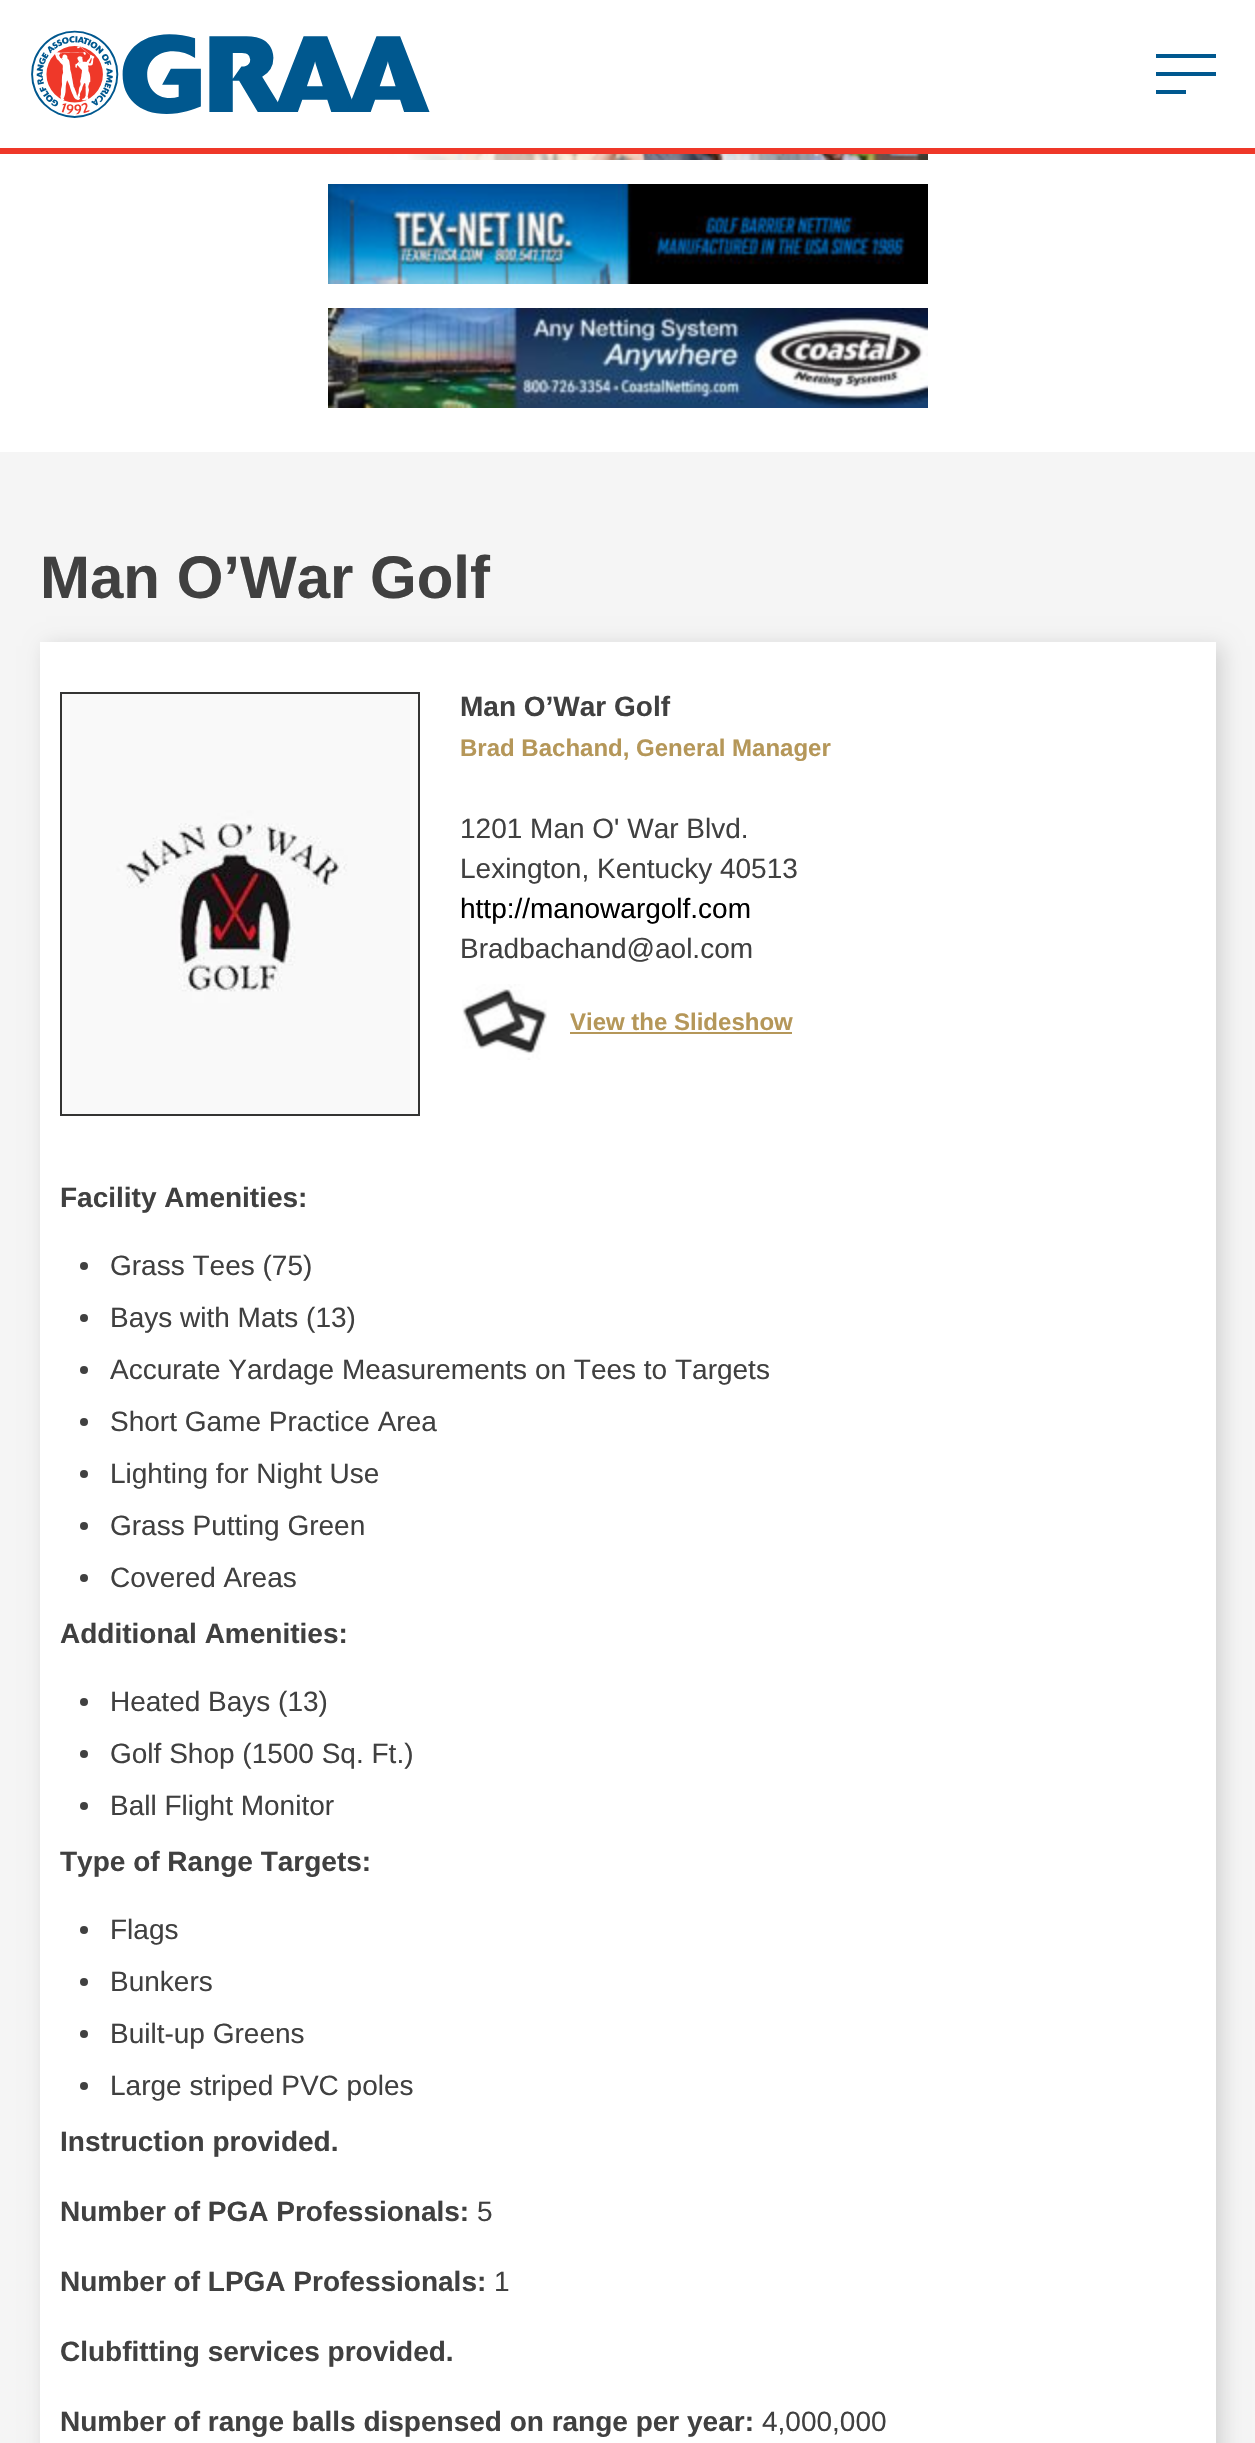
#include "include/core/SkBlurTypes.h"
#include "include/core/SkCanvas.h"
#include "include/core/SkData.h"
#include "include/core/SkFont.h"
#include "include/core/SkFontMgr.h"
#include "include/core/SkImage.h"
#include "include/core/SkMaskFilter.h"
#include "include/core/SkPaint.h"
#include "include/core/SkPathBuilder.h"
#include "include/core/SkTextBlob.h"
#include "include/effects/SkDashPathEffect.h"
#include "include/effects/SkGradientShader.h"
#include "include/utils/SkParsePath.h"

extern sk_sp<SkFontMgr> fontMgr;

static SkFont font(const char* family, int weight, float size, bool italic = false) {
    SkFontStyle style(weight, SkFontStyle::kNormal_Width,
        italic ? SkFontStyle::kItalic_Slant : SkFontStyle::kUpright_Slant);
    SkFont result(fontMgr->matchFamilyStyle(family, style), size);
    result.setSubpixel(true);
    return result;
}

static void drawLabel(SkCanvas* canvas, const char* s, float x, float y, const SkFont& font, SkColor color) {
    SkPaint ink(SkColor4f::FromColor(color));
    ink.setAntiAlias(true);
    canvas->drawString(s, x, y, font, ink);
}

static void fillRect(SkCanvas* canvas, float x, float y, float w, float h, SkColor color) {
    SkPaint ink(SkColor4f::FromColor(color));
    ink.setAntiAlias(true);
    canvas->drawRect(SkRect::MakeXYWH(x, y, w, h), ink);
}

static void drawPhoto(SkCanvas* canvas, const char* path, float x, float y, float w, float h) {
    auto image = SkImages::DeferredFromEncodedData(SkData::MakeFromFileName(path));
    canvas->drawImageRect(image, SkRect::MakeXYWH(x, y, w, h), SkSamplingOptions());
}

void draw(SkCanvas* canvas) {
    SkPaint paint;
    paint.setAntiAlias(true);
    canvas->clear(0xFFFFFFFF);
    fillRect(canvas, 0, 148, 1255, 6, 0xFFEF3829);
    drawPhoto(canvas, "assets/img1.png", 31, 30, 399, 88);
    fillRect(canvas, 1156, 72, 60, 4, 0xFF00588F);
    fillRect(canvas, 1156, 54, 60, 4, 0xFF00588F);
    fillRect(canvas, 1156, 90, 30, 4, 0xFF00588F);
    drawPhoto(canvas, "assets/img2.png", 328, 154, 600, 6);
    drawPhoto(canvas, "assets/img3.png", 328, 184, 600, 100);
    drawPhoto(canvas, "assets/img4.png", 328, 308, 600, 100);
    fillRect(canvas, 0, 452, 1255, 1991, 0xFFF5F5F5);
    SkFont font1 = font("Liberation Sans", 700, 60);
    drawLabel(canvas, "Man O’War Golf", 40, 598, font1, 0xFF404040);
    paint.setColor(0x26000000);
    paint.setMaskFilter(SkMaskFilter::MakeBlur(kNormal_SkBlurStyle, 10));
    canvas->drawRect(SkRect::MakeXYWH(46, 646, 1176, 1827), paint);
    paint.setMaskFilter(nullptr);
    fillRect(canvas, 40, 642, 1176, 1801, 0xFFFFFFFF);
    paint.setStroke(true);
    paint.setStrokeWidth(2);
    paint.setColor(0xFF343433);
    canvas->drawRect(SkRect::MakeXYWH(61, 693, 358, 422), paint);
    drawPhoto(canvas, "assets/img5.png", 62, 694, 356, 420);
    SkFont font2 = font("Liberation Sans", 700, 28);
    drawLabel(canvas, "Man O’War Golf", 460, 716, font2, 0xFF404040);
    SkFont font3 = font("Liberation Sans", 700, 24);
    drawLabel(canvas, "Brad Bachand, General Manager", 460, 756, font3, 0xFFB59759);
    SkFont font4 = font("Liberation Sans", 400, 28);
    drawLabel(canvas, "1201 Man O' War Blvd.", 460, 838, font4, 0xFF404040);
    drawLabel(canvas, "Lexington, Kentucky 40513", 460, 878, font4, 0xFF404040);
    drawLabel(canvas, "http://manowargolf.com", 460, 918, font4, 0xFF000000);
    drawLabel(canvas, "Bradbachand@aol.com", 460, 958, font4, 0xFF404040);
    drawPhoto(canvas, "assets/img6.png", 462, 984, 85, 76);
    drawLabel(canvas, "View the Slideshow", 570, 1030, font3, 0xFFB59759);
    fillRect(canvas, 570, 1032, 222, 2, 0xFFB59759);
    drawLabel(canvas, "Facility Amenities:", 60, 1207, font2, 0xFF404040);
    paint.setStroke(false);
    paint.setColor(0xFF404040);
    canvas->drawCircle(84, 1266, 4, paint);
    drawLabel(canvas, "Grass Tees (75)", 110, 1275, font4, 0xFF404040);
    canvas->drawCircle(84, 1318, 4, paint);
    drawLabel(canvas, "Bays with Mats (13)", 110, 1327, font4, 0xFF404040);
    canvas->drawCircle(84, 1370, 4, paint);
    drawLabel(canvas, "Accurate Yardage Measurements on Tees to Targets", 110, 1379, font4, 0xFF404040);
    canvas->drawCircle(84, 1422, 4, paint);
    drawLabel(canvas, "Short Game Practice Area", 110, 1431, font4, 0xFF404040);
    canvas->drawCircle(84, 1474, 4, paint);
    drawLabel(canvas, "Lighting for Night Use", 110, 1483, font4, 0xFF404040);
    canvas->drawCircle(84, 1526, 4, paint);
    drawLabel(canvas, "Grass Putting Green", 110, 1535, font4, 0xFF404040);
    canvas->drawCircle(84, 1578, 4, paint);
    drawLabel(canvas, "Covered Areas", 110, 1587, font4, 0xFF404040);
    drawLabel(canvas, "Additional Amenities:", 60, 1643, font2, 0xFF404040);
    canvas->drawCircle(84, 1702, 4, paint);
    drawLabel(canvas, "Heated Bays (13)", 110, 1711, font4, 0xFF404040);
    canvas->drawCircle(84, 1754, 4, paint);
    drawLabel(canvas, "Golf Shop (1500 Sq. Ft.)", 110, 1763, font4, 0xFF404040);
    canvas->drawCircle(84, 1806, 4, paint);
    drawLabel(canvas, "Ball Flight Monitor", 110, 1815, font4, 0xFF404040);
    drawLabel(canvas, "Type of Range Targets:", 60, 1871, font2, 0xFF404040);
    canvas->drawCircle(84, 1930, 4, paint);
    drawLabel(canvas, "Flags", 110, 1939, font4, 0xFF404040);
    canvas->drawCircle(84, 1982, 4, paint);
    drawLabel(canvas, "Bunkers", 110, 1991, font4, 0xFF404040);
    canvas->drawCircle(84, 2034, 4, paint);
    drawLabel(canvas, "Built-up Greens", 110, 2043, font4, 0xFF404040);
    canvas->drawCircle(84, 2086, 4, paint);
    drawLabel(canvas, "Large striped PVC poles", 110, 2095, font4, 0xFF404040);
    drawLabel(canvas, "Instruction provided.", 60, 2151, font2, 0xFF404040);
    drawLabel(canvas, "Number of PGA Professionals:", 60, 2221, font2, 0xFF404040);
    drawLabel(canvas, "5", 477, 2221, font4, 0xFF404040);
    drawLabel(canvas, "Number of LPGA Professionals:", 60, 2291, font2, 0xFF404040);
    drawLabel(canvas, "1", 494, 2291, font4, 0xFF404040);
    drawLabel(canvas, "Clubfitting services provided.", 60, 2361, font2, 0xFF404040);
    drawLabel(canvas, "Number of range balls dispensed on range per year:", 60, 2431, font2, 0xFF404040);
    drawLabel(canvas, "4,000,000", 762, 2431, font4, 0xFF404040);
}
